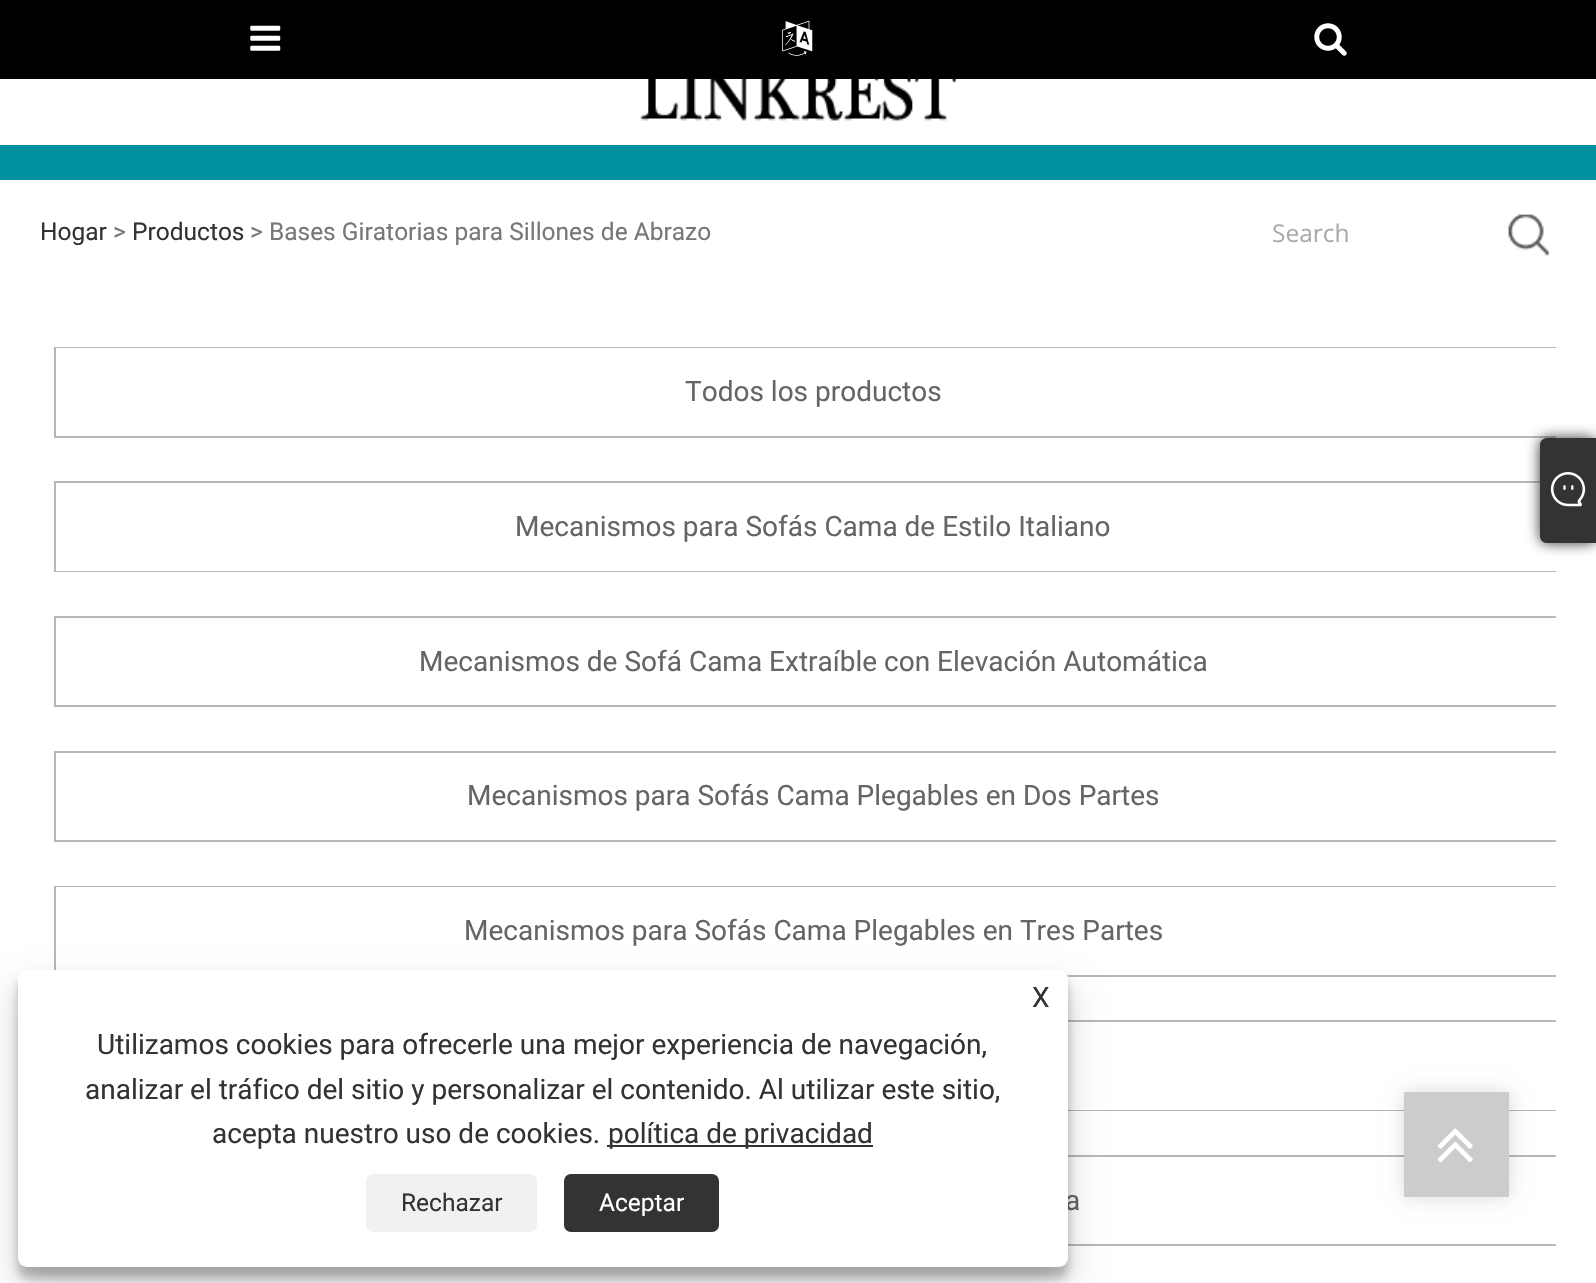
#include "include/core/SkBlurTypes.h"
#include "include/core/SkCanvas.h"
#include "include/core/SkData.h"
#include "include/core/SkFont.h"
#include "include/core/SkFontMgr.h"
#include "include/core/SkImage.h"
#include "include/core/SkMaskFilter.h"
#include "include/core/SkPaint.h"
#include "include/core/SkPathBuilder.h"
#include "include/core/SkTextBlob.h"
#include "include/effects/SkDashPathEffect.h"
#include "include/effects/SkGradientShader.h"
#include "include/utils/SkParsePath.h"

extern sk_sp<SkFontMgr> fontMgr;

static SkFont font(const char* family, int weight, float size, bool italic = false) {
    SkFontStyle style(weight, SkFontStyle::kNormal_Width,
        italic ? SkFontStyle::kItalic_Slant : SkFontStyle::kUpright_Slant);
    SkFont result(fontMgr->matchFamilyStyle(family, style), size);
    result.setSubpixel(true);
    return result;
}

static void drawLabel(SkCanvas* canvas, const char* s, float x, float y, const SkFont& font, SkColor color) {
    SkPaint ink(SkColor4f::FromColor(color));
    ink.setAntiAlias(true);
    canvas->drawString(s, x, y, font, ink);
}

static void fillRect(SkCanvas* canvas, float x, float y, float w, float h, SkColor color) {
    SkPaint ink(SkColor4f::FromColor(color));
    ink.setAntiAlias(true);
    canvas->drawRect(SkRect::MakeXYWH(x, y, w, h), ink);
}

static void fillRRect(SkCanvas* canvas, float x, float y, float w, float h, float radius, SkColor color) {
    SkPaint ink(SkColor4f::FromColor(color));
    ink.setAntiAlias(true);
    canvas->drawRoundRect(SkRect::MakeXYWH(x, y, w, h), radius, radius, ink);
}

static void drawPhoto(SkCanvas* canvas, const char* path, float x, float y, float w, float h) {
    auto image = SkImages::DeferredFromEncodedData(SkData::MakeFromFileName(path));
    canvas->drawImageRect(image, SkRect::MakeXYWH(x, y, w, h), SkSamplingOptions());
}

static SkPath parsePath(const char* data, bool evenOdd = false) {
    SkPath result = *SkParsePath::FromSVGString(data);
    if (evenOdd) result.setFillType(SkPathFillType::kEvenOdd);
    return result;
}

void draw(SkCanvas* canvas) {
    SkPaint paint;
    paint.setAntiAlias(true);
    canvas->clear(0xFFFFFFFF);
    fillRect(canvas, 0, 0, 1596, 79, 0xFF000000);
    drawPhoto(canvas, "assets/img1.png", 250, 25, 31, 26);
    drawPhoto(canvas, "assets/img2.png", 782, 20, 31, 36);
    drawPhoto(canvas, "assets/img3.png", 1314, 23, 33, 33);
    fillRect(canvas, 0, 145, 1596, 35, 0xFF00909E);
    drawPhoto(canvas, "assets/img4.png", 640, 79, 317, 42);
    SkFont font1 = font("Roboto", 400, 24.5f);
    drawLabel(canvas, "Hogar", 40, 240, font1, 0xFF333333);
    drawLabel(canvas, ">", 113, 240, font1, 0xFF777777);
    drawLabel(canvas, "Productos", 132, 240, font1, 0xFF333333);
    drawLabel(canvas, "> Bases Giratorias para Sillones de Abrazo", 250, 240, font1, 0xFF777777);
    SkFont font2 = font("Open Sans", 400, 24.5f);
    drawLabel(canvas, "Search", 1272, 242, font2, 0xFFAAAAAA);
    drawPhoto(canvas, "assets/img5.png", 1508, 214, 41, 42);
    canvas->save();
    canvas->clipRect(SkRect::MakeXYWH(40, 347, 1516, 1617));
    paint.setStroke(true);
    paint.setStrokeWidth(2);
    paint.setColor(0xFFB7B7B7);
    canvas->drawRect(SkRect::MakeXYWH(55, 348, 1516, 89), paint);
    canvas->restore();
    fillRect(canvas, 56, 348, 1500, 1, 0xFFFFFFFF);
    SkFont font3 = font("Roboto", 400, 28);
    drawLabel(canvas, "Todos los productos", 685, 401, font3, 0xFF646565);
    canvas->save();
    canvas->clipRect(SkRect::MakeXYWH(40, 347, 1516, 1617));
    canvas->drawRect(SkRect::MakeXYWH(55, 482, 1516, 89), paint);
    canvas->restore();
    fillRect(canvas, 56, 570, 1500, 1, 0xFFFFFFFF);
    drawLabel(canvas, "Mecanismos para Sofás Cama de Estilo Italiano", 515, 536, font3, 0xFF646565);
    canvas->save();
    canvas->clipRect(SkRect::MakeXYWH(40, 347, 1516, 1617));
    canvas->drawRect(SkRect::MakeXYWH(55, 617, 1516, 89), paint);
    canvas->restore();
    drawLabel(canvas, "Mecanismos de Sofá Cama Extraíble con Elevación Automática", 419, 671, font3, 0xFF646565);
    canvas->save();
    canvas->clipRect(SkRect::MakeXYWH(40, 347, 1516, 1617));
    canvas->drawRect(SkRect::MakeXYWH(55, 752, 1516, 89), paint);
    canvas->restore();
    drawLabel(canvas, "Mecanismos para Sofás Cama Plegables en Dos Partes", 467, 805, font3, 0xFF646565);
    canvas->save();
    canvas->clipRect(SkRect::MakeXYWH(40, 347, 1516, 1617));
    canvas->drawRect(SkRect::MakeXYWH(55, 887, 1516, 89), paint);
    canvas->restore();
    fillRect(canvas, 56, 887, 1500, 1, 0xFFFFFFFF);
    drawLabel(canvas, "Mecanismos para Sofás Cama Plegables en Tres Partes", 464, 940, font3, 0xFF646565);
    canvas->save();
    canvas->clipRect(SkRect::MakeXYWH(40, 347, 1516, 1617));
    canvas->drawRect(SkRect::MakeXYWH(55, 1021, 1516, 89), paint);
    canvas->restore();
    fillRect(canvas, 1068, 1109, 488, 1, 0xFFFFFFFF);
    canvas->save();
    canvas->clipRect(SkRect::MakeXYWH(40, 347, 1516, 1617));
    canvas->drawRect(SkRect::MakeXYWH(55, 1156, 1516, 89), paint);
    canvas->restore();
    drawLabel(canvas, "a", 1065, 1210, font3, 0xFF646565);
    paint.setStroke(false);
    paint.setColor(0xFF333333);
    paint.setMaskFilter(SkMaskFilter::MakeBlur(kNormal_SkBlurStyle, 7));
    canvas->drawRoundRect(SkRect::MakeXYWH(1540, 438, 56, 105), 7, 7, paint);
    paint.setMaskFilter(nullptr);
    canvas->drawPath(parsePath("M1547 438H1596V543H1547C1543 543 1540 540 1540 536V445C1540 441 1543 438 1547 438Z"), paint);
    drawPhoto(canvas, "assets/img6.png", 1550, 472, 36, 35);
    paint.setColor(0x3B000000);
    paint.setMaskFilter(SkMaskFilter::MakeBlur(kNormal_SkBlurStyle, 5));
    canvas->drawRoundRect(SkRect::MakeXYWH(18, 980, 1050, 298), 9, 9, paint);
    paint.setMaskFilter(nullptr);
    paint.setColor(0x30000000);
    paint.setMaskFilter(SkMaskFilter::MakeBlur(kNormal_SkBlurStyle, 17.5f));
    canvas->drawRoundRect(SkRect::MakeXYWH(18, 987, 1050, 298), 9, 9, paint);
    paint.setMaskFilter(nullptr);
    fillRRect(canvas, 18, 970, 1050, 297, 9, 0xFFFFFFFF);
    drawLabel(canvas, "X", 1032, 1007, font3, 0xFF333333);
    drawLabel(canvas, "Utilizamos cookies para ofrecerle una mejor experiencia de navegación,", 97, 1054, font3, 0xFF333333);
    drawLabel(canvas, "analizar el tráfico del sitio y personalizar el contenido. Al utilizar este sitio,", 85, 1099, font3, 0xFF333333);
    drawLabel(canvas, "acepta nuestro uso de cookies.", 212, 1143, font3, 0xFF333333);
    fillRect(canvas, 607, 1145, 266, 2, 0xFF333333);
    drawLabel(canvas, "política de privacidad", 608, 1143, font3, 0xFF333333);
    fillRRect(canvas, 366, 1174, 171, 58, 7, 0xFFF1F1F1);
    drawLabel(canvas, "Rechazar", 401, 1211, font1, 0xFF333333);
    fillRRect(canvas, 564, 1174, 155, 58, 7, 0xFF333333);
    drawLabel(canvas, "Aceptar", 599, 1211, font1, 0xFFFFFFFF);
    paint.setColor(0x26000000);
    paint.setMaskFilter(SkMaskFilter::MakeBlur(kNormal_SkBlurStyle, 9));
    canvas->drawRect(SkRect::MakeXYWH(1404, 1092, 105, 105), paint);
    paint.setMaskFilter(nullptr);
    fillRect(canvas, 1404, 1092, 105, 105, 0xFFCCCCCC);
    drawPhoto(canvas, "assets/img7.png", 1437, 1128, 36, 35);
}
